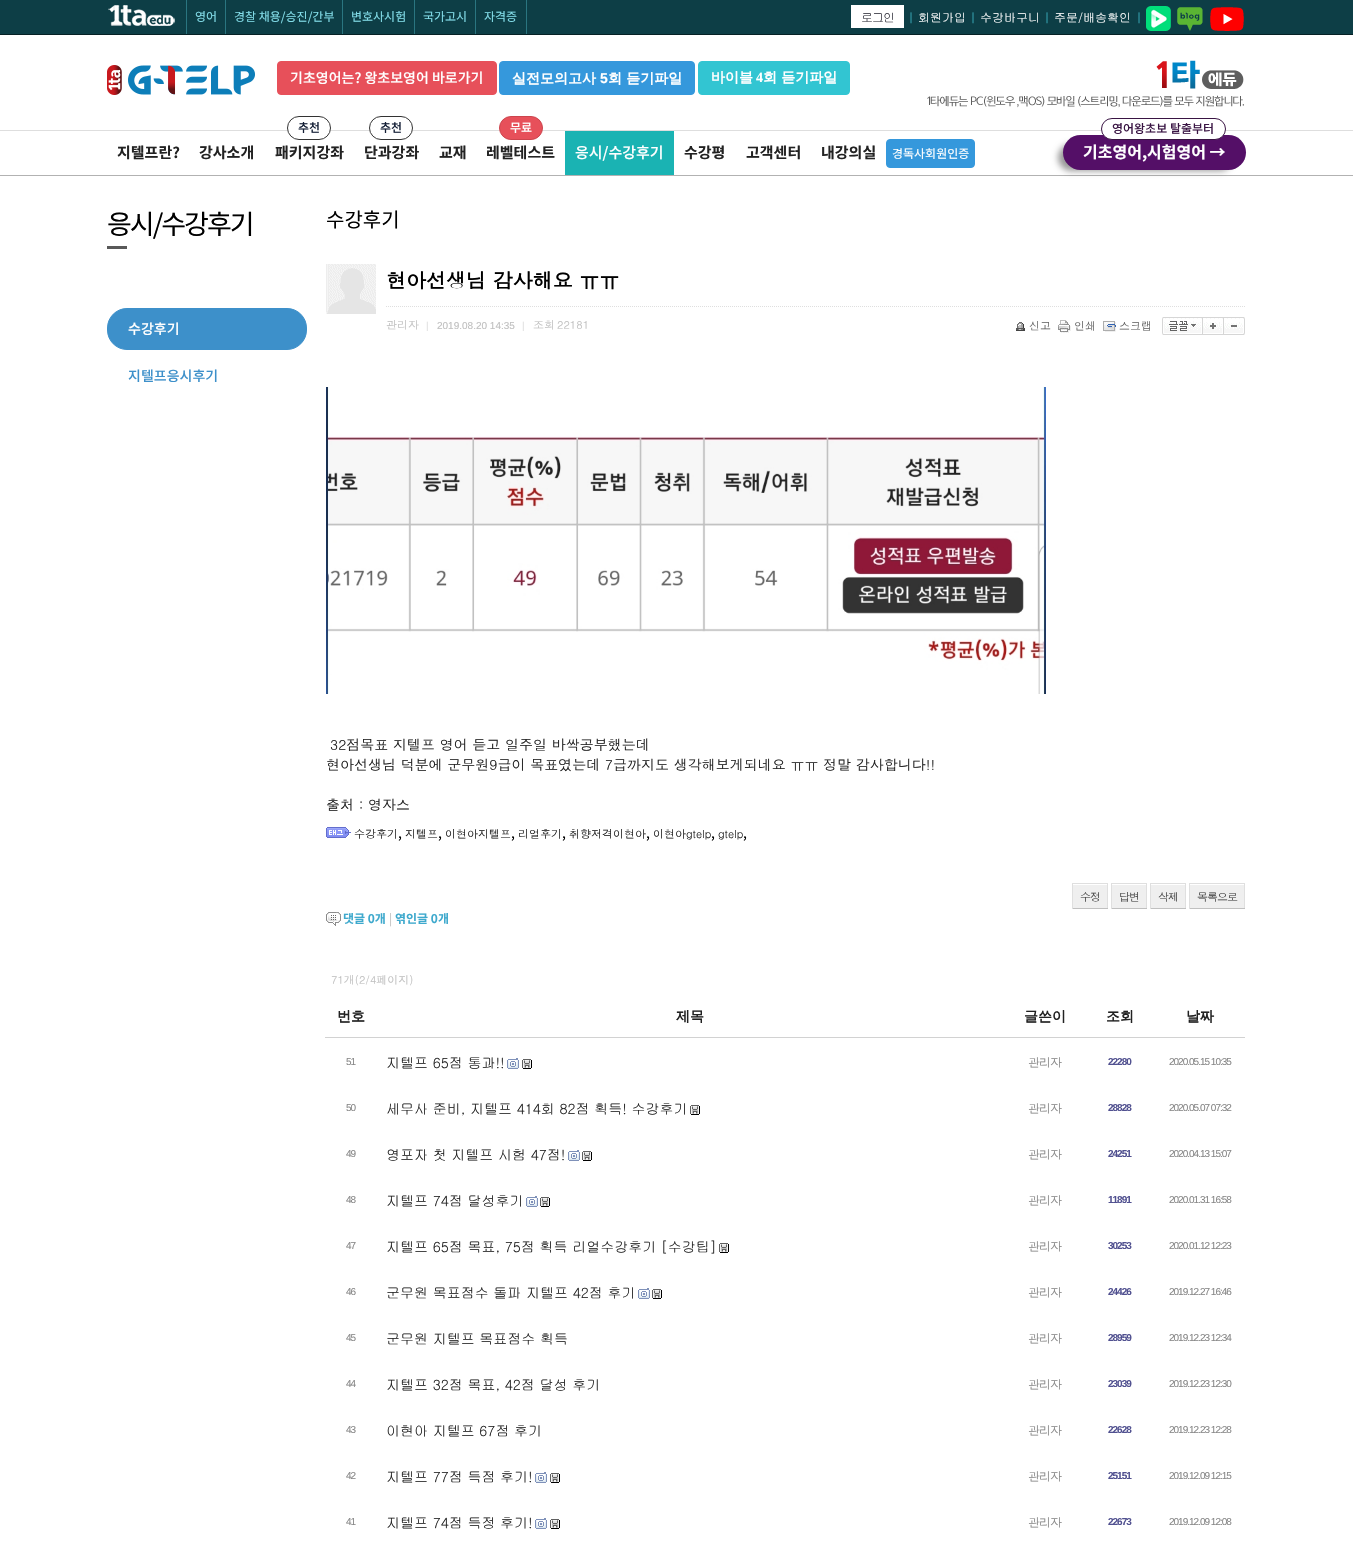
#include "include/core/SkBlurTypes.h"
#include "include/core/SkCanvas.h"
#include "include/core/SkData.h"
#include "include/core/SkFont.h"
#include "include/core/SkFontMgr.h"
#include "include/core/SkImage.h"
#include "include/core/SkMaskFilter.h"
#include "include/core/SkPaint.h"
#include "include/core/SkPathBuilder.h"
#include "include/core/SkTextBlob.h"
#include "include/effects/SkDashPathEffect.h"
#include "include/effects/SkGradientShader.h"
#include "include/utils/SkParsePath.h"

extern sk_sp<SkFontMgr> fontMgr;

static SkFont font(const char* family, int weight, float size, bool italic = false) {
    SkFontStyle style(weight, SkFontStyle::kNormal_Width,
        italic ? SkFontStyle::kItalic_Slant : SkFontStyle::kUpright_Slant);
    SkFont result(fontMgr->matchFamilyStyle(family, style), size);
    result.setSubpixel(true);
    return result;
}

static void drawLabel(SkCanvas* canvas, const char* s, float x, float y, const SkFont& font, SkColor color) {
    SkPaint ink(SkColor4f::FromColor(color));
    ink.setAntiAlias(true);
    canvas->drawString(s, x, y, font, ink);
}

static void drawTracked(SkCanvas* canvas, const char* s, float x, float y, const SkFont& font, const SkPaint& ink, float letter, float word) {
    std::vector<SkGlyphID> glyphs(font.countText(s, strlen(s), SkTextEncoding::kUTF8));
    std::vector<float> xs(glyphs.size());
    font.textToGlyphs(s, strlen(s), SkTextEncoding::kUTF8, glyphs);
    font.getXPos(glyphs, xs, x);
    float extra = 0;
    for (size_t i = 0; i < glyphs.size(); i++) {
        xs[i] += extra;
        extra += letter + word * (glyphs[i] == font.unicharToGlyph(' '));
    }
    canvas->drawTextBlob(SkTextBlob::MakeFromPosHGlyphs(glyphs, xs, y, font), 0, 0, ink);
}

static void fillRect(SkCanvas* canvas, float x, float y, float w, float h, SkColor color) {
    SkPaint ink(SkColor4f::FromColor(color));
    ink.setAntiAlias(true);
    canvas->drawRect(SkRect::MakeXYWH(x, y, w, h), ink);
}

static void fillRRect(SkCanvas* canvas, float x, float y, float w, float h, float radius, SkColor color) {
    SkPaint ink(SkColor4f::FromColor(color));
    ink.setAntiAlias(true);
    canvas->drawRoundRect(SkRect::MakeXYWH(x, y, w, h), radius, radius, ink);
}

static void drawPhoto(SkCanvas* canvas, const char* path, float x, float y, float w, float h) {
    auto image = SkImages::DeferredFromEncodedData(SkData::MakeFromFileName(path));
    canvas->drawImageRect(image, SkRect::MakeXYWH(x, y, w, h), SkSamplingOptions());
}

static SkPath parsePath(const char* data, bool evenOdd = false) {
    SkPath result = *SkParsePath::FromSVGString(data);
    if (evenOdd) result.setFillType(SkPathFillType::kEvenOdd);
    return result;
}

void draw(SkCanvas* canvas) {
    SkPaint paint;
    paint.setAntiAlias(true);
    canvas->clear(0xFFFFFFFF);
    fillRect(canvas, 0, 0, 1353, 34, 0xFF0D3E46);
    fillRect(canvas, 0, 34, 1353, 1, 0xFF062125);
    fillRect(canvas, 186, 0, 1, 34, 0xFF2A7580);
    drawPhoto(canvas, "assets/img1.png", 108, 5, 67, 21);
    fillRect(canvas, 225, 0, 1, 34, 0xFF2A7580);
    SkFont font1 = font("Noto Sans KR", 400, 12);
    drawLabel(canvas, "영어", 195, 21, font1, 0xFF82DCE8);
    fillRect(canvas, 342, 0, 1, 34, 0xFF2A7580);
    drawLabel(canvas, "경찰 채용/승진/간부", 234, 21, font1, 0xFF82DCE8);
    fillRect(canvas, 414, 0, 1, 34, 0xFF2A7580);
    drawLabel(canvas, "변호사시험", 351, 21, font1, 0xFF82DCE8);
    fillRect(canvas, 475, 0, 1, 34, 0xFF2A7580);
    drawLabel(canvas, "국가고시", 423, 21, font1, 0xFF82DCE8);
    fillRect(canvas, 526, 0, 1, 34, 0xFF2A7580);
    drawLabel(canvas, "자격증", 484, 21, font1, 0xFF82DCE8);
    fillRect(canvas, 851, 5, 53, 23, 0xFFFFFFFF);
    SkFont font2 = font("Gulim", 400, 12);
    paint.setColor(0xFF34343E);
    drawTracked(canvas, "로그인", 861, 22, font2, paint, -1, 0);
    drawLabel(canvas, "|", 908, 22, font2, 0xFF3AAFBF);
    drawLabel(canvas, "회원가입", 918, 22, font2, 0xFFFFFFFF);
    drawLabel(canvas, "|", 970, 22, font2, 0xFF3AAFBF);
    drawLabel(canvas, "수강바구니", 980, 22, font2, 0xFFFFFFFF);
    drawLabel(canvas, "|", 1044, 22, font2, 0xFF3AAFBF);
    drawLabel(canvas, "주문/배송확인", 1054, 22, font2, 0xFFFFFFFF);
    drawLabel(canvas, "|", 1136, 22, font2, 0xFF3AAFBF);
    drawPhoto(canvas, "assets/img2.png", 1146, 6, 25, 25);
    drawPhoto(canvas, "assets/img3.png", 1177, 7, 26, 24);
    drawPhoto(canvas, "assets/img4.png", 1210, 7, 34, 24);
    fillRect(canvas, 0, 130, 1353, 1, 0xFFDEDEDE);
    drawPhoto(canvas, "assets/img5.png", 107, 65, 148, 30);
    paint.setColor(0xFFE7505A);
    canvas->drawRoundRect(SkRect::MakeXYWH(277.5f, 61.5f, 219, 33), 3.5f, 3.5f, paint);
    paint.setStroke(true);
    paint.setStrokeWidth(1);
    canvas->drawRoundRect(SkRect::MakeXYWH(277.5f, 61.5f, 219, 33), 3.5f, 3.5f, paint);
    SkFont font3 = font("Noto Sans KR", 500, 14);
    drawLabel(canvas, "기초영어는? 왕초보영어 바로가기", 290, 83, font3, 0xFFFFFFFF);
    paint.setStroke(false);
    paint.setColor(0xFF3598DC);
    canvas->drawRoundRect(SkRect::MakeXYWH(499.5f, 61.5f, 195, 33), 3.5f, 3.5f, paint);
    paint.setStroke(true);
    canvas->drawRoundRect(SkRect::MakeXYWH(499.5f, 61.5f, 195, 33), 3.5f, 3.5f, paint);
    SkFont font4 = font("WenQuanYi Zen Hei", 700, 14);
    drawLabel(canvas, "실전모의고사", 512, 83, font4, 0xFFFFFFFF);
    SkFont font5 = font("Liberation Sans", 700, 14);
    drawLabel(canvas, "5", 600, 83, font5, 0xFFFFFFFF);
    drawLabel(canvas, "회 듣기파일", 608, 83, font4, 0xFFFFFFFF);
    paint.setStroke(false);
    paint.setColor(0xFF32C5D2);
    canvas->drawRoundRect(SkRect::MakeXYWH(698.5f, 61.5f, 151, 33), 3.5f, 3.5f, paint);
    paint.setStroke(true);
    canvas->drawRoundRect(SkRect::MakeXYWH(698.5f, 61.5f, 151, 33), 3.5f, 3.5f, paint);
    drawLabel(canvas, "바이블", 711, 82, font4, 0xFFFFFFFF);
    SkFont font6 = font("Liberation Serif", 700, 14);
    drawLabel(canvas, "4", 756, 82, font6, 0xFFFFFFFF);
    drawLabel(canvas, "회 듣기파일", 763, 82, font4, 0xFFFFFFFF);
    drawPhoto(canvas, "assets/img6.png", 927, 60, 317, 48);
    fillRect(canvas, 0, 175, 1353, 1, 0xFFB2B2B2);
    SkFont font7 = font("Noto Sans KR", 700, 15);
    drawLabel(canvas, "지텔프란?", 117, 158, font7, 0xFF222222);
    drawLabel(canvas, "강사소개", 199, 158, font7, 0xFF222222);
    paint.setStroke(false);
    paint.setColor(0xFFFFFFFF);
    canvas->drawRoundRect(SkRect::MakeXYWH(287.5f, 116.5f, 43, 23), 11.5f, 11.5f, paint);
    paint.setStroke(true);
    paint.setColor(0xFF333333);
    canvas->drawRoundRect(SkRect::MakeXYWH(287.5f, 116.5f, 43, 23), 11.5f, 11.5f, paint);
    SkFont font8 = font("Noto Sans KR", 500, 12);
    drawLabel(canvas, "추천", 298, 132, font8, 0xFF121D34);
    drawLabel(canvas, "패키지강좌", 275, 158, font7, 0xFF222222);
    paint.setStroke(false);
    paint.setColor(0xFFFFFFFF);
    canvas->drawRoundRect(SkRect::MakeXYWH(369.5f, 116.5f, 43, 23), 11.5f, 11.5f, paint);
    paint.setStroke(true);
    paint.setColor(0xFF333333);
    canvas->drawRoundRect(SkRect::MakeXYWH(369.5f, 116.5f, 43, 23), 11.5f, 11.5f, paint);
    drawLabel(canvas, "추천", 380, 132, font8, 0xFF121D34);
    drawLabel(canvas, "단과강좌", 364, 158, font7, 0xFF222222);
    drawLabel(canvas, "교재", 439, 158, font7, 0xFF222222);
    paint.setStroke(false);
    paint.setColor(0xFFE7505A);
    canvas->drawRoundRect(SkRect::MakeXYWH(499.5f, 116.5f, 43, 23), 11.5f, 11.5f, paint);
    paint.setStroke(true);
    paint.setColor(0xFFCC444D);
    canvas->drawRoundRect(SkRect::MakeXYWH(499.5f, 116.5f, 43, 23), 11.5f, 11.5f, paint);
    drawLabel(canvas, "무료", 510, 132, font8, 0xFFFFFFFF);
    drawLabel(canvas, "레벨테스트", 486, 158, font7, 0xFF222222);
    fillRect(canvas, 565, 131, 109, 44, 0xFF1AB3B3);
    SkFont font9 = font("Noto Sans KR", 500, 15);
    drawLabel(canvas, "응시/수강후기", 575, 158, font9, 0xFFFFFFFF);
    drawLabel(canvas, "수강평", 684, 158, font7, 0xFF222222);
    drawLabel(canvas, "고객센터", 746, 158, font7, 0xFF222222);
    drawLabel(canvas, "내강의실", 821, 158, font7, 0xFF222222);
    paint.setStroke(false);
    paint.setColor(0xFF3598DC);
    canvas->drawRoundRect(SkRect::MakeXYWH(886.5f, 139.5f, 88, 28), 3.5f, 3.5f, paint);
    paint.setStroke(true);
    canvas->drawRoundRect(SkRect::MakeXYWH(886.5f, 139.5f, 88, 28), 3.5f, 3.5f, paint);
    drawLabel(canvas, "경독사회원인증", 892, 158, font1, 0xFFFFFFFF);
    paint.setStroke(false);
    paint.setColor(0x66000000);
    paint.setMaskFilter(SkMaskFilter::MakeBlur(kNormal_SkBlurStyle, 3));
    canvas->drawRoundRect(SkRect::MakeXYWH(1058, 144, 175, 27), 13.5f, 13.5f, paint);
    paint.setMaskFilter(nullptr);
    fillRRect(canvas, 1063, 135, 183, 35, 17.5f, 0xFF540F67);
    paint.setColor(0xFFFFFFFF);
    canvas->drawRoundRect(SkRect::MakeXYWH(1101.5f, 118.5f, 124, 21), 10.5f, 10.5f, paint);
    paint.setStroke(true);
    paint.setColor(0xFF391443);
    canvas->drawRoundRect(SkRect::MakeXYWH(1101.5f, 118.5f, 124, 21), 10.5f, 10.5f, paint);
    drawLabel(canvas, "영어왕초보 탈출부터", 1112, 133, font8, 0xFF391443);
    SkFont font10 = font("Noto Sans KR", 700, 16);
    drawLabel(canvas, "기초영어,시험영어 →", 1083, 158, font10, 0xFFFFFFFF);
    SkFont font11 = font("Noto Sans KR", 400, 27);
    paint.setStroke(false);
    paint.setColor(0xFF000000);
    drawTracked(canvas, "응시/수강후기", 107, 234, font11, paint, -2, 0);
    fillRect(canvas, 107, 246, 20, 3, 0xFF595959);
    paint.setColor(0xFF3D90CA);
    canvas->drawRoundRect(SkRect::MakeXYWH(107.5f, 308.5f, 199, 41), 19.5f, 19.5f, paint);
    paint.setStroke(true);
    canvas->drawRoundRect(SkRect::MakeXYWH(107.5f, 308.5f, 199, 41), 19.5f, 19.5f, paint);
    drawLabel(canvas, "수강후기", 128, 334, font3, 0xFFFFFFFF);
    drawLabel(canvas, "지텔프응시후기", 128, 381, font3, 0xFF3D90CA);
    SkFont font12 = font("Noto Sans KR", 400, 20);
    drawLabel(canvas, "수강후기", 326, 227, font12, 0xFF000000);
    drawPhoto(canvas, "assets/img7.png", 326, 264, 50, 50);
    paint.setColor(0xFFDFDFDF);
    paint.setPathEffect(SkDashPathEffect::Make({{1, 1}}, 0));
    canvas->drawPath(parsePath("M386 306.5H1245"), paint);
    paint.setPathEffect(nullptr);
    SkFont font13 = font("Dotum", 700, 20);
    drawLabel(canvas, "현아선생님 감사해요 ㅠㅠ", 386, 288, font13, 0xFF000000);
    SkFont font14 = font("Dotum", 400, 11);
    drawLabel(canvas, "관리자", 386, 329, font14, 0xFFC0C0C0);
    SkFont font15 = font("Liberation Sans", 400, 10);
    drawLabel(canvas, "|", 426, 329, font15, 0xFFDFDFDF);
    drawLabel(canvas, "2019.08.20 14:35", 437, 329, font15, 0xFFC0C0C0);
    drawLabel(canvas, "|", 522, 329, font15, 0xFFDFDFDF);
    drawLabel(canvas, "조회", 533, 329, font14, 0xFFC0C0C0);
    drawLabel(canvas, "22181", 557, 329, font14, 0xFFC0C0C0);
    drawPhoto(canvas, "assets/img8.png", 1016, 322, 9, 9);
    drawLabel(canvas, "신고", 1029, 330, font14, 0xFF666666);
    drawPhoto(canvas, "assets/img9.png", 1058, 320, 13, 13);
    drawLabel(canvas, "인쇄", 1074, 330, font14, 0xFF666666);
    drawPhoto(canvas, "assets/img10.png", 1103, 321, 13, 11);
    drawLabel(canvas, "스크랩", 1119, 330, font14, 0xFF666666);
    drawPhoto(canvas, "assets/img11.png", 1162, 317, 41, 18);
    drawPhoto(canvas, "assets/img12.png", 1203, 317, 21, 18);
    drawPhoto(canvas, "assets/img13.png", 1224, 317, 21, 18);
    drawPhoto(canvas, "assets/img14.png", 326, 387, 720, 307);
    SkFont font16 = font("Dotum", 400, 14);
    drawLabel(canvas, "32점목표 지텔프 영어 듣고 일주일 바싹공부했는데", 330, 750, font16, 0xFF222222);
    drawLabel(canvas, "현아선생님 덕분에 군무원9급이 목표였는데 7급까지도 생각해보게되네요 ㅠㅠ 정말 감사합니다!!", 326, 770, font16, 0xFF222222);
    drawLabel(canvas, "출처 : 영자스", 326, 810, font16, 0xFF222222);
    drawPhoto(canvas, "assets/img15.png", 326, 827, 25, 11);
    drawLabel(canvas, "수강후기", 354, 838, font14, 0xFF222222);
    SkFont font17 = font("Noto Sans KR", 400, 14);
    drawLabel(canvas, ",", 398, 838, font17, 0xFF000000);
    drawLabel(canvas, "지텔프", 405, 838, font14, 0xFF222222);
    drawLabel(canvas, ",", 438, 838, font17, 0xFF000000);
    drawLabel(canvas, "이현아지텔프", 445, 838, font14, 0xFF222222);
    drawLabel(canvas, ",", 511, 838, font17, 0xFF000000);
    drawLabel(canvas, "리얼후기", 518, 838, font14, 0xFF222222);
    drawLabel(canvas, ",", 562, 838, font17, 0xFF000000);
    drawLabel(canvas, "취향저격이현아", 569, 838, font14, 0xFF222222);
    drawLabel(canvas, ",", 646, 838, font17, 0xFF000000);
    drawLabel(canvas, "이현아gtelp", 653, 838, font14, 0xFF222222);
    drawLabel(canvas, ",", 711, 838, font17, 0xFF000000);
    drawLabel(canvas, "gtelp", 718, 838, font14, 0xFF222222);
    drawLabel(canvas, ",", 743, 838, font17, 0xFF000000);
    fillRect(canvas, 1072, 883, 36, 1, 0xFFDFDFDF);
    fillRect(canvas, 1107, 883, 1, 26, 0xFFDFDFDF);
    fillRect(canvas, 1072, 908, 36, 1, 0xFFC0C0C0);
    fillRect(canvas, 1072, 883, 1, 26, 0xFFDFDFDF);
    fillRect(canvas, 1073, 885, 34, 23, 0xFFEFEFEF);
    paint.setStroke(false);
    paint.setColor(0xFF444444);
    drawTracked(canvas, "수정", 1080, 901, font14, paint, -1, 0);
    fillRect(canvas, 1111, 883, 36, 1, 0xFFDFDFDF);
    fillRect(canvas, 1146, 883, 1, 26, 0xFFDFDFDF);
    fillRect(canvas, 1111, 908, 36, 1, 0xFFC0C0C0);
    fillRect(canvas, 1111, 883, 1, 26, 0xFFDFDFDF);
    fillRect(canvas, 1112, 885, 34, 23, 0xFFEFEFEF);
    drawTracked(canvas, "답변", 1119, 901, font14, paint, -1, 0);
    fillRect(canvas, 1150, 883, 36, 1, 0xFFDFDFDF);
    fillRect(canvas, 1185, 883, 1, 26, 0xFFDFDFDF);
    fillRect(canvas, 1150, 908, 36, 1, 0xFFC0C0C0);
    fillRect(canvas, 1150, 883, 1, 26, 0xFFDFDFDF);
    fillRect(canvas, 1151, 885, 34, 23, 0xFFEFEFEF);
    drawTracked(canvas, "삭제", 1158, 901, font14, paint, -1, 0);
    fillRect(canvas, 1189, 883, 56, 1, 0xFFDFDFDF);
    fillRect(canvas, 1244, 883, 1, 26, 0xFFDFDFDF);
    fillRect(canvas, 1189, 908, 56, 1, 0xFFC0C0C0);
    fillRect(canvas, 1189, 883, 1, 26, 0xFFDFDFDF);
    fillRect(canvas, 1190, 885, 54, 23, 0xFFEFEFEF);
    drawTracked(canvas, "목록으로", 1197, 901, font14, paint, -1, 0);
    drawPhoto(canvas, "assets/img16.png", 326, 912, 15, 14);
    SkFont font18 = font("Noto Sans KR", 700, 12);
    drawLabel(canvas, "댓글 0개", 343, 923, font18, 0xFF3EA9CD);
    drawLabel(canvas, "|", 389, 923, font1, 0xFFC0C0C0);
    drawLabel(canvas, "엮인글 0개", 395, 923, font18, 0xFF3EA9CD);
    drawLabel(canvas, "71개(2/4페이지)", 331, 984, font14, 0xFFC0C0C0);
    drawLabel(canvas, "번호", 337, 1021, font4, 0xFF222222);
    drawLabel(canvas, "제목", 676, 1021, font4, 0xFF222222);
    drawLabel(canvas, "글쓴이", 1024, 1021, font4, 0xFF222222);
    drawLabel(canvas, "조회", 1106, 1021, font4, 0xFF222222);
    fillRect(canvas, 325, 1037, 920, 1, 0xFFD2D2D2);
    drawLabel(canvas, "날짜", 1186, 1021, font4, 0xFF222222);
    paint.setColor(0xFF888888);
    drawTracked(canvas, "51", 346, 1065, font15, paint, -1, 0);
    SkFont font19 = font("Gulim", 400, 14);
    drawLabel(canvas, "지텔프 65점 통과!!", 386, 1068, font19, 0xFF222222);
    drawPhoto(canvas, "assets/img17.png", 507, 1058, 12, 11);
    drawPhoto(canvas, "assets/img18.png", 522, 1059, 10, 10);
    SkFont font20 = font("Dotum", 400, 12);
    drawTracked(canvas, "관리자", 1028, 1067, font20, paint, -1, 0);
    SkFont font21 = font("Liberation Sans", 700, 10);
    paint.setColor(0xFF515190);
    drawTracked(canvas, "22280", 1108, 1065, font21, paint, -1, 0);
    paint.setColor(0xFF888888);
    drawTracked(canvas, "2020.05.15 10:35", 1169, 1065, font15, paint, -1, 0);
    drawTracked(canvas, "50", 346, 1111, font15, paint, -1, 0);
    drawLabel(canvas, "세무사 준비, 지텔프 414회 82점 획득! 수강후기", 386, 1114, font19, 0xFF222222);
    drawPhoto(canvas, "assets/img18.png", 690, 1105, 10, 10);
    drawTracked(canvas, "관리자", 1028, 1113, font20, paint, -1, 0);
    paint.setColor(0xFF515190);
    drawTracked(canvas, "28828", 1108, 1111, font21, paint, -1, 0);
    paint.setColor(0xFF888888);
    drawTracked(canvas, "2020.05.07 07:32", 1169, 1111, font15, paint, -1, 0);
    drawTracked(canvas, "49", 346, 1157, font15, paint, -1, 0);
    drawLabel(canvas, "영포자 첫 지텔프 시험 47점!", 386, 1160, font19, 0xFF222222);
    drawPhoto(canvas, "assets/img17.png", 568, 1150, 12, 11);
    drawPhoto(canvas, "assets/img18.png", 582, 1151, 10, 10);
    drawTracked(canvas, "관리자", 1028, 1159, font20, paint, -1, 0);
    paint.setColor(0xFF515190);
    drawTracked(canvas, "24251", 1108, 1157, font21, paint, -1, 0);
    paint.setColor(0xFF888888);
    drawTracked(canvas, "2020.04.13 15:07", 1169, 1157, font15, paint, -1, 0);
    drawTracked(canvas, "48", 346, 1203, font15, paint, -1, 0);
    drawLabel(canvas, "지텔프 74점 달성후기", 386, 1206, font19, 0xFF222222);
    drawPhoto(canvas, "assets/img17.png", 526, 1196, 12, 11);
    drawPhoto(canvas, "assets/img18.png", 540, 1197, 10, 10);
    drawTracked(canvas, "관리자", 1028, 1205, font20, paint, -1, 0);
    paint.setColor(0xFF515190);
    drawTracked(canvas, "11891", 1108, 1203, font21, paint, -1, 0);
    paint.setColor(0xFF888888);
    drawTracked(canvas, "2020.01.31 16:58", 1169, 1203, font15, paint, -1, 0);
    drawTracked(canvas, "47", 346, 1249, font15, paint, -1, 0);
    drawLabel(canvas, "지텔프 65점 목표, 75점 획득 리얼수강후기 [수강팁]", 386, 1252, font19, 0xFF222222);
    drawPhoto(canvas, "assets/img18.png", 719, 1243, 10, 10);
    drawTracked(canvas, "관리자", 1028, 1251, font20, paint, -1, 0);
    paint.setColor(0xFF515190);
    drawTracked(canvas, "30253", 1108, 1249, font21, paint, -1, 0);
    paint.setColor(0xFF888888);
    drawTracked(canvas, "2020.01.12 12:23", 1169, 1249, font15, paint, -1, 0);
    drawTracked(canvas, "46", 346, 1295, font15, paint, -1, 0);
    drawLabel(canvas, "군무원 목표점수 돌파 지텔프 42점 후기", 386, 1298, font19, 0xFF222222);
    drawPhoto(canvas, "assets/img17.png", 638, 1288, 12, 11);
    drawPhoto(canvas, "assets/img18.png", 652, 1289, 10, 10);
    drawTracked(canvas, "관리자", 1028, 1297, font20, paint, -1, 0);
    paint.setColor(0xFF515190);
    drawTracked(canvas, "24426", 1108, 1295, font21, paint, -1, 0);
    paint.setColor(0xFF888888);
    drawTracked(canvas, "2019.12.27 16:46", 1169, 1295, font15, paint, -1, 0);
    drawTracked(canvas, "45", 346, 1341, font15, paint, -1, 0);
    drawLabel(canvas, "군무원 지텔프 목표점수 획득", 386, 1344, font19, 0xFF222222);
    drawTracked(canvas, "관리자", 1028, 1343, font20, paint, -1, 0);
    paint.setColor(0xFF515190);
    drawTracked(canvas, "28959", 1108, 1341, font21, paint, -1, 0);
    paint.setColor(0xFF888888);
    drawTracked(canvas, "2019.12.23 12:34", 1169, 1341, font15, paint, -1, 0);
    drawTracked(canvas, "44", 346, 1387, font15, paint, -1, 0);
    drawLabel(canvas, "지텔프 32점 목표, 42점 달성 후기", 386, 1390, font19, 0xFF222222);
    drawTracked(canvas, "관리자", 1028, 1389, font20, paint, -1, 0);
    paint.setColor(0xFF515190);
    drawTracked(canvas, "23039", 1108, 1387, font21, paint, -1, 0);
    paint.setColor(0xFF888888);
    drawTracked(canvas, "2019.12.23 12:30", 1169, 1387, font15, paint, -1, 0);
    drawTracked(canvas, "43", 346, 1433, font15, paint, -1, 0);
    drawLabel(canvas, "이현아 지텔프 67점 후기", 386, 1436, font19, 0xFF222222);
    drawTracked(canvas, "관리자", 1028, 1435, font20, paint, -1, 0);
    paint.setColor(0xFF515190);
    drawTracked(canvas, "22628", 1108, 1433, font21, paint, -1, 0);
    paint.setColor(0xFF888888);
    drawTracked(canvas, "2019.12.23 12:28", 1169, 1433, font15, paint, -1, 0);
    drawTracked(canvas, "42", 346, 1479, font15, paint, -1, 0);
    drawLabel(canvas, "지텔프 77점 득점 후기!", 386, 1482, font19, 0xFF222222);
    drawPhoto(canvas, "assets/img17.png", 535, 1472, 12, 11);
    drawPhoto(canvas, "assets/img18.png", 550, 1473, 10, 10);
    drawTracked(canvas, "관리자", 1028, 1481, font20, paint, -1, 0);
    paint.setColor(0xFF515190);
    drawTracked(canvas, "25151", 1108, 1479, font21, paint, -1, 0);
    paint.setColor(0xFF888888);
    drawTracked(canvas, "2019.12.09 12:15", 1169, 1479, font15, paint, -1, 0);
    drawTracked(canvas, "41", 346, 1525, font15, paint, -1, 0);
    drawLabel(canvas, "지텔프 74점 득정 후기!", 386, 1528, font19, 0xFF222222);
    drawPhoto(canvas, "assets/img17.png", 535, 1518, 12, 11);
    drawPhoto(canvas, "assets/img18.png", 550, 1519, 10, 10);
    drawTracked(canvas, "관리자", 1028, 1527, font20, paint, -1, 0);
    paint.setColor(0xFF515190);
    drawTracked(canvas, "22673", 1108, 1525, font21, paint, -1, 0);
    paint.setColor(0xFF888888);
    drawTracked(canvas, "2019.12.09 12:08", 1169, 1525, font15, paint, -1, 0);
}
